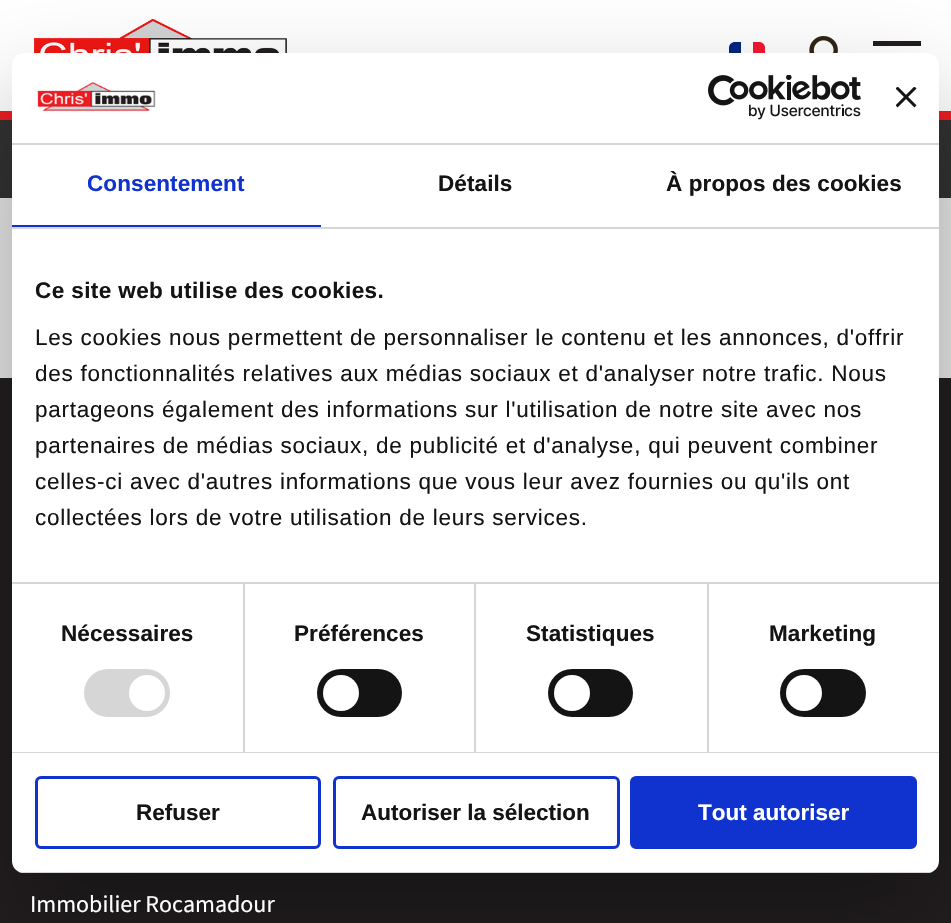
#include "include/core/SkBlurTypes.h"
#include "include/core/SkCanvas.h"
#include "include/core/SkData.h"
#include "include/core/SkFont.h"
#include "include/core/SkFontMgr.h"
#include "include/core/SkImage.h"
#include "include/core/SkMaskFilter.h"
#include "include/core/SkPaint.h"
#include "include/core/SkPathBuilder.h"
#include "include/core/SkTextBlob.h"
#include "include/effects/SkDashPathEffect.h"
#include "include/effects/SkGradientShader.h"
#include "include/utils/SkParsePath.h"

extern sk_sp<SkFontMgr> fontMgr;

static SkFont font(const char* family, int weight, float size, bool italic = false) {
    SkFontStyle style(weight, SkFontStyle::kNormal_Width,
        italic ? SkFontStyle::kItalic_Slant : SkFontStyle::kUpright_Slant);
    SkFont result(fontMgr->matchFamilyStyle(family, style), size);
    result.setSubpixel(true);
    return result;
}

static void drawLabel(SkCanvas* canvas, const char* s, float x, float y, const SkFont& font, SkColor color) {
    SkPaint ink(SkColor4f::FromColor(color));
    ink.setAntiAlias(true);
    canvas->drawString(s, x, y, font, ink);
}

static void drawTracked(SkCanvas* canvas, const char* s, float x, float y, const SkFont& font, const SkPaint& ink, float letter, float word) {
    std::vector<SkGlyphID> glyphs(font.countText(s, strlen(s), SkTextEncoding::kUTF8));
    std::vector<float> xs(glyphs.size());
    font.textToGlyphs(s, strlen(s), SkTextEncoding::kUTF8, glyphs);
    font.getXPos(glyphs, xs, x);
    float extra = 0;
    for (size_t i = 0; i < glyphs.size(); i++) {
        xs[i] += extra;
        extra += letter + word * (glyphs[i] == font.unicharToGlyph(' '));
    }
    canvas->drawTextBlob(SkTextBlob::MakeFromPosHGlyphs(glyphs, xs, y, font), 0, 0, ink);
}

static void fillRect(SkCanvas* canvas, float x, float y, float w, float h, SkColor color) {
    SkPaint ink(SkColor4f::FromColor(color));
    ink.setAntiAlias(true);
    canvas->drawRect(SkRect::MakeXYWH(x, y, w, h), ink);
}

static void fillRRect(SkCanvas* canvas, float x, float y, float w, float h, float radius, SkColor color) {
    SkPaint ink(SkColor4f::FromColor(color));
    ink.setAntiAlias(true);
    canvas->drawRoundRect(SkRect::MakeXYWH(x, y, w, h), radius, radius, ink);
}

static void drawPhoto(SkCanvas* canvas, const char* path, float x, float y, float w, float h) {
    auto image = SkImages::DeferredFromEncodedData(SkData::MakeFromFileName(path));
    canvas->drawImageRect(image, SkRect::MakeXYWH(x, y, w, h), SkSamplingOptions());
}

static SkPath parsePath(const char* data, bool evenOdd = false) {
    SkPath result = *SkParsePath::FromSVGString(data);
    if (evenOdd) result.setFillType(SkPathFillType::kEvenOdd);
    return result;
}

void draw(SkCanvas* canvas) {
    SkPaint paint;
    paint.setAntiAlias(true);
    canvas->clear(0xFFEAE9E9);
    fillRect(canvas, 0, 0, 951, 111, 0xFFFFFFFF);
    fillRect(canvas, 0, 111, 951, 9, 0xFFEE1D23);
    drawPhoto(canvas, "assets/img1.png", 34, 18, 253, 35);
    paint.setColor(0xFF00267F);
    canvas->drawPath(parsePath("M735 42H741V69H735C731.5 69 729 66.5 729 63V48C729 44.5 731.5 42 735 42Z"), paint);
    paint.setColor(0xFFF31830);
    canvas->drawPath(parsePath("M753 42H759C762.5 42 765 44.5 765 48V63C765 66.5 762.5 69 759 69H753Z"), paint);
    drawPhoto(canvas, "assets/img2.png", 809, 36, 29, 17);
    fillRect(canvas, 873, 41, 48, 5, 0xFF221E1F);
    fillRect(canvas, 0, 120, 951, 78, 0xFF323232);
    fillRect(canvas, 0, 378, 951, 545, 0xFF221E1F);
    paint.setColor(0x4D000000);
    paint.setMaskFilter(SkMaskFilter::MakeBlur(kNormal_SkBlurStyle, 51));
    canvas->drawRoundRect(SkRect::MakeXYWH(12, 101, 927, 820), 12, 12, paint);
    paint.setMaskFilter(nullptr);
    fillRRect(canvas, 12, 53, 927, 820, 12, 0xFFFFFFFF);
    fillRect(canvas, 12, 143, 927, 2, 0xFFD6D6D6);
    drawPhoto(canvas, "assets/img3.png", 37, 82, 119, 30);
    drawPhoto(canvas, "assets/img4.png", 708, 75, 153, 45);
    drawPhoto(canvas, "assets/img5.png", 896, 87, 21, 21);
    fillRect(canvas, 12, 227, 927, 2, 0xFFD6D6D6);
    fillRect(canvas, 12, 225, 309, 2, 0xFF1032CF);
    SkFont font1 = font("Liberation Sans", 700, 22.5f);
    paint.setColor(0xFF1032CF);
    drawTracked(canvas, "Consentement", 87, 191, font1, paint, 0.1f, 0);
    paint.setColor(0xFF141414);
    drawTracked(canvas, "Détails", 438, 191, font1, paint, 0.1f, 0);
    drawTracked(canvas, "À propos des cookies", 666, 191, font1, paint, 0.1f, 0);
    fillRect(canvas, 12, 582, 927, 2, 0xFFD6D6D6);
    drawTracked(canvas, "Ce site web utilise des cookies.", 35, 298, font1, paint, 0.4f, 0);
    SkFont font2 = font("Liberation Sans", 400, 22.5f);
    drawTracked(canvas, "Les cookies nous permettent de personnaliser le contenu et les annonces, d'offrir", 35, 345, font2, paint, 0.75f, 0);
    drawTracked(canvas, "des fonctionnalités relatives aux médias sociaux et d'analyser notre trafic. Nous", 35, 381, font2, paint, 0.75f, 0);
    drawTracked(canvas, "partageons également des informations sur l'utilisation de notre site avec nos", 35, 417, font2, paint, 0.75f, 0);
    drawTracked(canvas, "partenaires de médias sociaux, de publicité et d'analyse, qui peuvent combiner", 35, 453, font2, paint, 0.75f, 0);
    drawTracked(canvas, "celles-ci avec d'autres informations que vous leur avez fournies ou qu'ils ont", 35, 489, font2, paint, 0.75f, 0);
    drawTracked(canvas, "collectées lors de votre utilisation de leurs services.", 35, 525, font2, paint, 0.75f, 0);
    fillRect(canvas, 12, 752, 927, 1, 0xFFD6D6D6);
    fillRect(canvas, 243, 584, 2, 168, 0xFFD6D6D6);
    drawTracked(canvas, "Nécessaires", 61, 641, font1, paint, 0.1f, 0);
    fillRRect(canvas, 84, 669, 86, 48, 24, 0xFFD6D6D6);
    paint.setColor(0xFFFFFFFF);
    canvas->drawCircle(147, 693, 18, paint);
    fillRect(canvas, 474, 584, 2, 168, 0xFFD6D6D6);
    paint.setColor(0xFF141414);
    drawTracked(canvas, "Préférences", 294, 641, font1, paint, 0.1f, 0);
    fillRRect(canvas, 317, 669, 85, 48, 24, 0xFF141414);
    paint.setColor(0xFFFFFFFF);
    canvas->drawCircle(341, 693, 18, paint);
    fillRect(canvas, 707, 584, 2, 168, 0xFFD6D6D6);
    paint.setColor(0xFF141414);
    drawTracked(canvas, "Statistiques", 526, 641, font1, paint, 0.1f, 0);
    fillRRect(canvas, 548, 669, 85, 48, 24, 0xFF141414);
    paint.setColor(0xFFFFFFFF);
    canvas->drawCircle(572, 693, 18, paint);
    paint.setColor(0xFF141414);
    drawTracked(canvas, "Marketing", 769, 641, font1, paint, 0.1f, 0);
    fillRRect(canvas, 780, 669, 86, 48, 24, 0xFF141414);
    paint.setColor(0xFFFFFFFF);
    canvas->drawCircle(804, 693, 18, paint);
    canvas->save();
    canvas->clipPath(parsePath("M24 53H927C933.5 53 939 58.5 939 65V861C939 867.5 933.5 873 927 873H24C17.5 873 12 867.5 12 861V65C12 58.5 17.5 53 24 53Z"), true);
    fillRect(canvas, 12, 872, 927, 1, 0xFFD6D6D6);
    canvas->restore();
    paint.setStroke(true);
    paint.setStrokeWidth(3);
    paint.setColor(0xFF1032CF);
    canvas->drawRoundRect(SkRect::MakeXYWH(36.5f, 777.5f, 283, 70), 4.5f, 4.5f, paint);
    drawLabel(canvas, "Refuser", 136, 820, font1, 0xFF141414);
    canvas->drawRoundRect(SkRect::MakeXYWH(334.5f, 777.5f, 284, 70), 4.5f, 4.5f, paint);
    drawLabel(canvas, "Autoriser la sélection", 361, 820, font1, 0xFF141414);
    paint.setStroke(false);
    canvas->drawRoundRect(SkRect::MakeXYWH(631.5f, 777.5f, 284, 70), 4.5f, 4.5f, paint);
    paint.setStroke(true);
    canvas->drawRoundRect(SkRect::MakeXYWH(631.5f, 777.5f, 284, 70), 4.5f, 4.5f, paint);
    drawLabel(canvas, "Tout autoriser", 698, 820, font1, 0xFFFFFFFF);
    SkFont font3 = font("Source Sans Pro", 400, 24);
    drawLabel(canvas, "Immobilier Rocamadour", 30, 912, font3, 0xFFFFFFFF);
}
